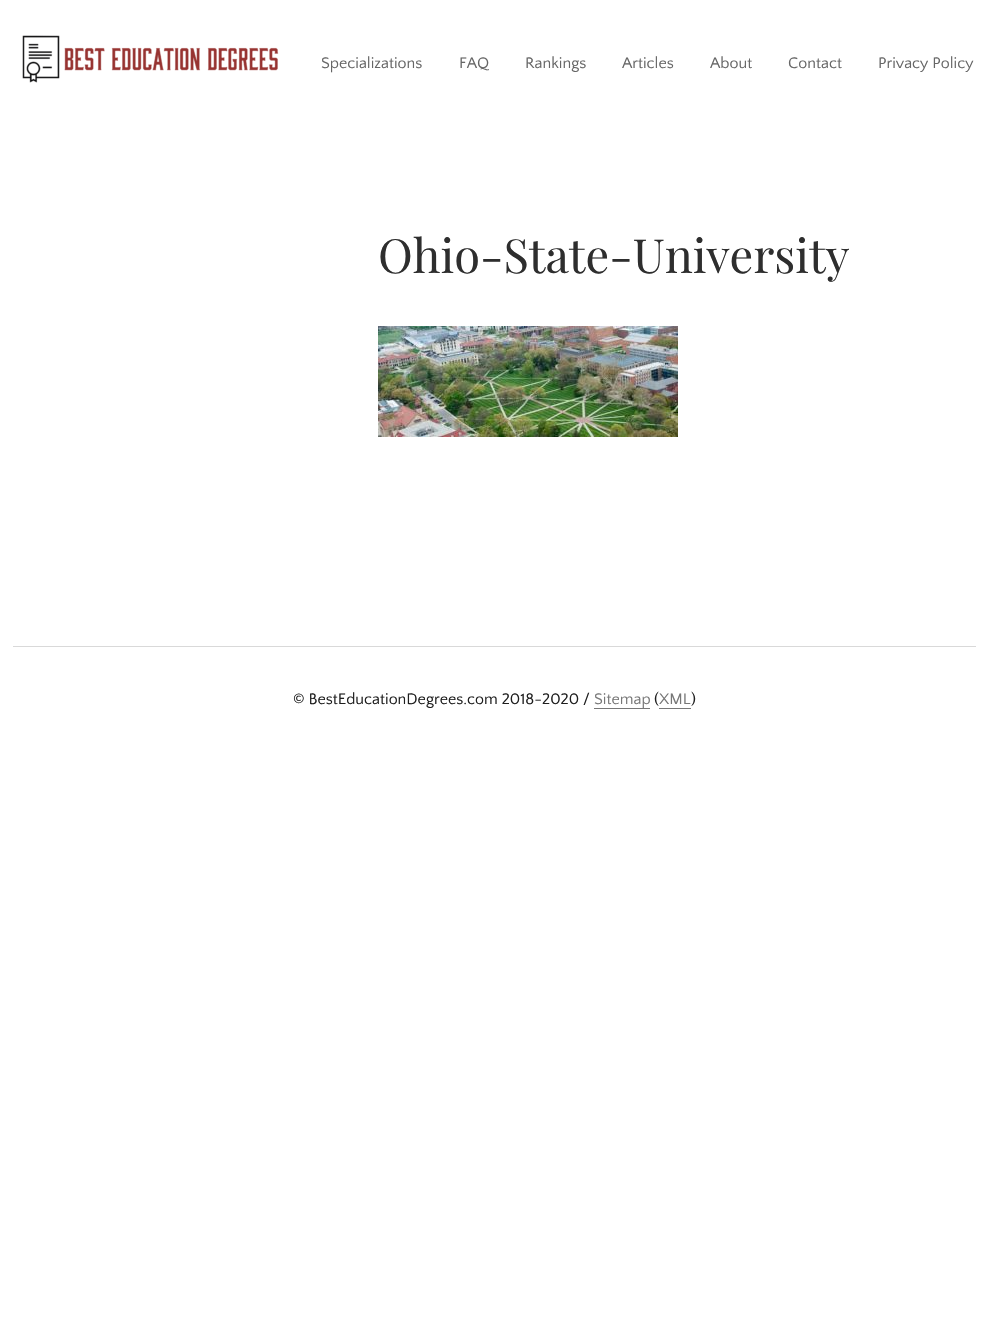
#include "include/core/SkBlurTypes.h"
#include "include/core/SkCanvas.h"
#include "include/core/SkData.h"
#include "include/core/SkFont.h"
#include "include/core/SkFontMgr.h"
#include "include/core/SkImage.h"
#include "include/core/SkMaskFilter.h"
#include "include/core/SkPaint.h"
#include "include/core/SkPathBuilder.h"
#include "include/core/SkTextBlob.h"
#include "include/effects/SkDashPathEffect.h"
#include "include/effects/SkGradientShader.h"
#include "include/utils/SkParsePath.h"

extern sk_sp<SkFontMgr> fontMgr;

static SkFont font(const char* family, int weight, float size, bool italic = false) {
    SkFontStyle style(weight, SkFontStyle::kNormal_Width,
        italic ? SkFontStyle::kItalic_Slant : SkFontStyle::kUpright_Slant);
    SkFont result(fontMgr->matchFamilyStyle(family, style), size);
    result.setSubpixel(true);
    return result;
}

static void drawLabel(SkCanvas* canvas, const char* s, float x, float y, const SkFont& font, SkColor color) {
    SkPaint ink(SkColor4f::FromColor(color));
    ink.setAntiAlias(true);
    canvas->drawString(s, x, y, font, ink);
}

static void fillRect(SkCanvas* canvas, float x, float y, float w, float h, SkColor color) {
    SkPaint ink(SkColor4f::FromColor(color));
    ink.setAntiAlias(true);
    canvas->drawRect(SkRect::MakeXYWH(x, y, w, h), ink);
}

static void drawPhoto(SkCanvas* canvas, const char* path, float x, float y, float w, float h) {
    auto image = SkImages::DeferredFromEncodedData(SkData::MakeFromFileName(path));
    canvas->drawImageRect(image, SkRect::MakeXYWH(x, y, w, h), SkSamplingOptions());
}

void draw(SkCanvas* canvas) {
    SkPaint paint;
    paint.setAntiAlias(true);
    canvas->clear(0xFFFFFFFF);
    drawPhoto(canvas, "assets/img1.png", 22, 35, 257, 48);
    SkFont font1 = font("Quattrocento Sans", 400, 16);
    drawLabel(canvas, "Specializations", 321, 68, font1, 0xFF666666);
    drawLabel(canvas, "FAQ", 459, 68, font1, 0xFF666666);
    drawLabel(canvas, "Rankings", 525, 68, font1, 0xFF666666);
    drawLabel(canvas, "Articles", 622, 68, font1, 0xFF666666);
    drawLabel(canvas, "About", 710, 68, font1, 0xFF666666);
    drawLabel(canvas, "Contact", 788, 68, font1, 0xFF666666);
    drawLabel(canvas, "Privacy Policy", 878, 68, font1, 0xFF666666);
    SkFont font2 = font("Playfair Display", 400, 47);
    drawLabel(canvas, "Ohio-State-University", 378, 273, font2, 0xFF2E2E2E);
    drawPhoto(canvas, "assets/img2.png", 378, 326, 300, 111);
    fillRect(canvas, 13, 646, 963, 1, 0xFFD9D9D9);
    drawLabel(canvas, "© BestEducationDegrees.com 2018-2020 /", 293, 704, font1, 0xFF1E1E1E);
    fillRect(canvas, 594, 708, 56, 1, 0xFF777777);
    drawLabel(canvas, "Sitemap", 594, 704, font1, 0xFF777777);
    drawLabel(canvas, "(", 654, 704, font1, 0xFF1E1E1E);
    drawLabel(canvas, "XML", 659, 704, font1, 0xFF777777);
    fillRect(canvas, 659, 708, 32, 1, 0xFF777777);
    drawLabel(canvas, ")", 691, 704, font1, 0xFF1E1E1E);
}
